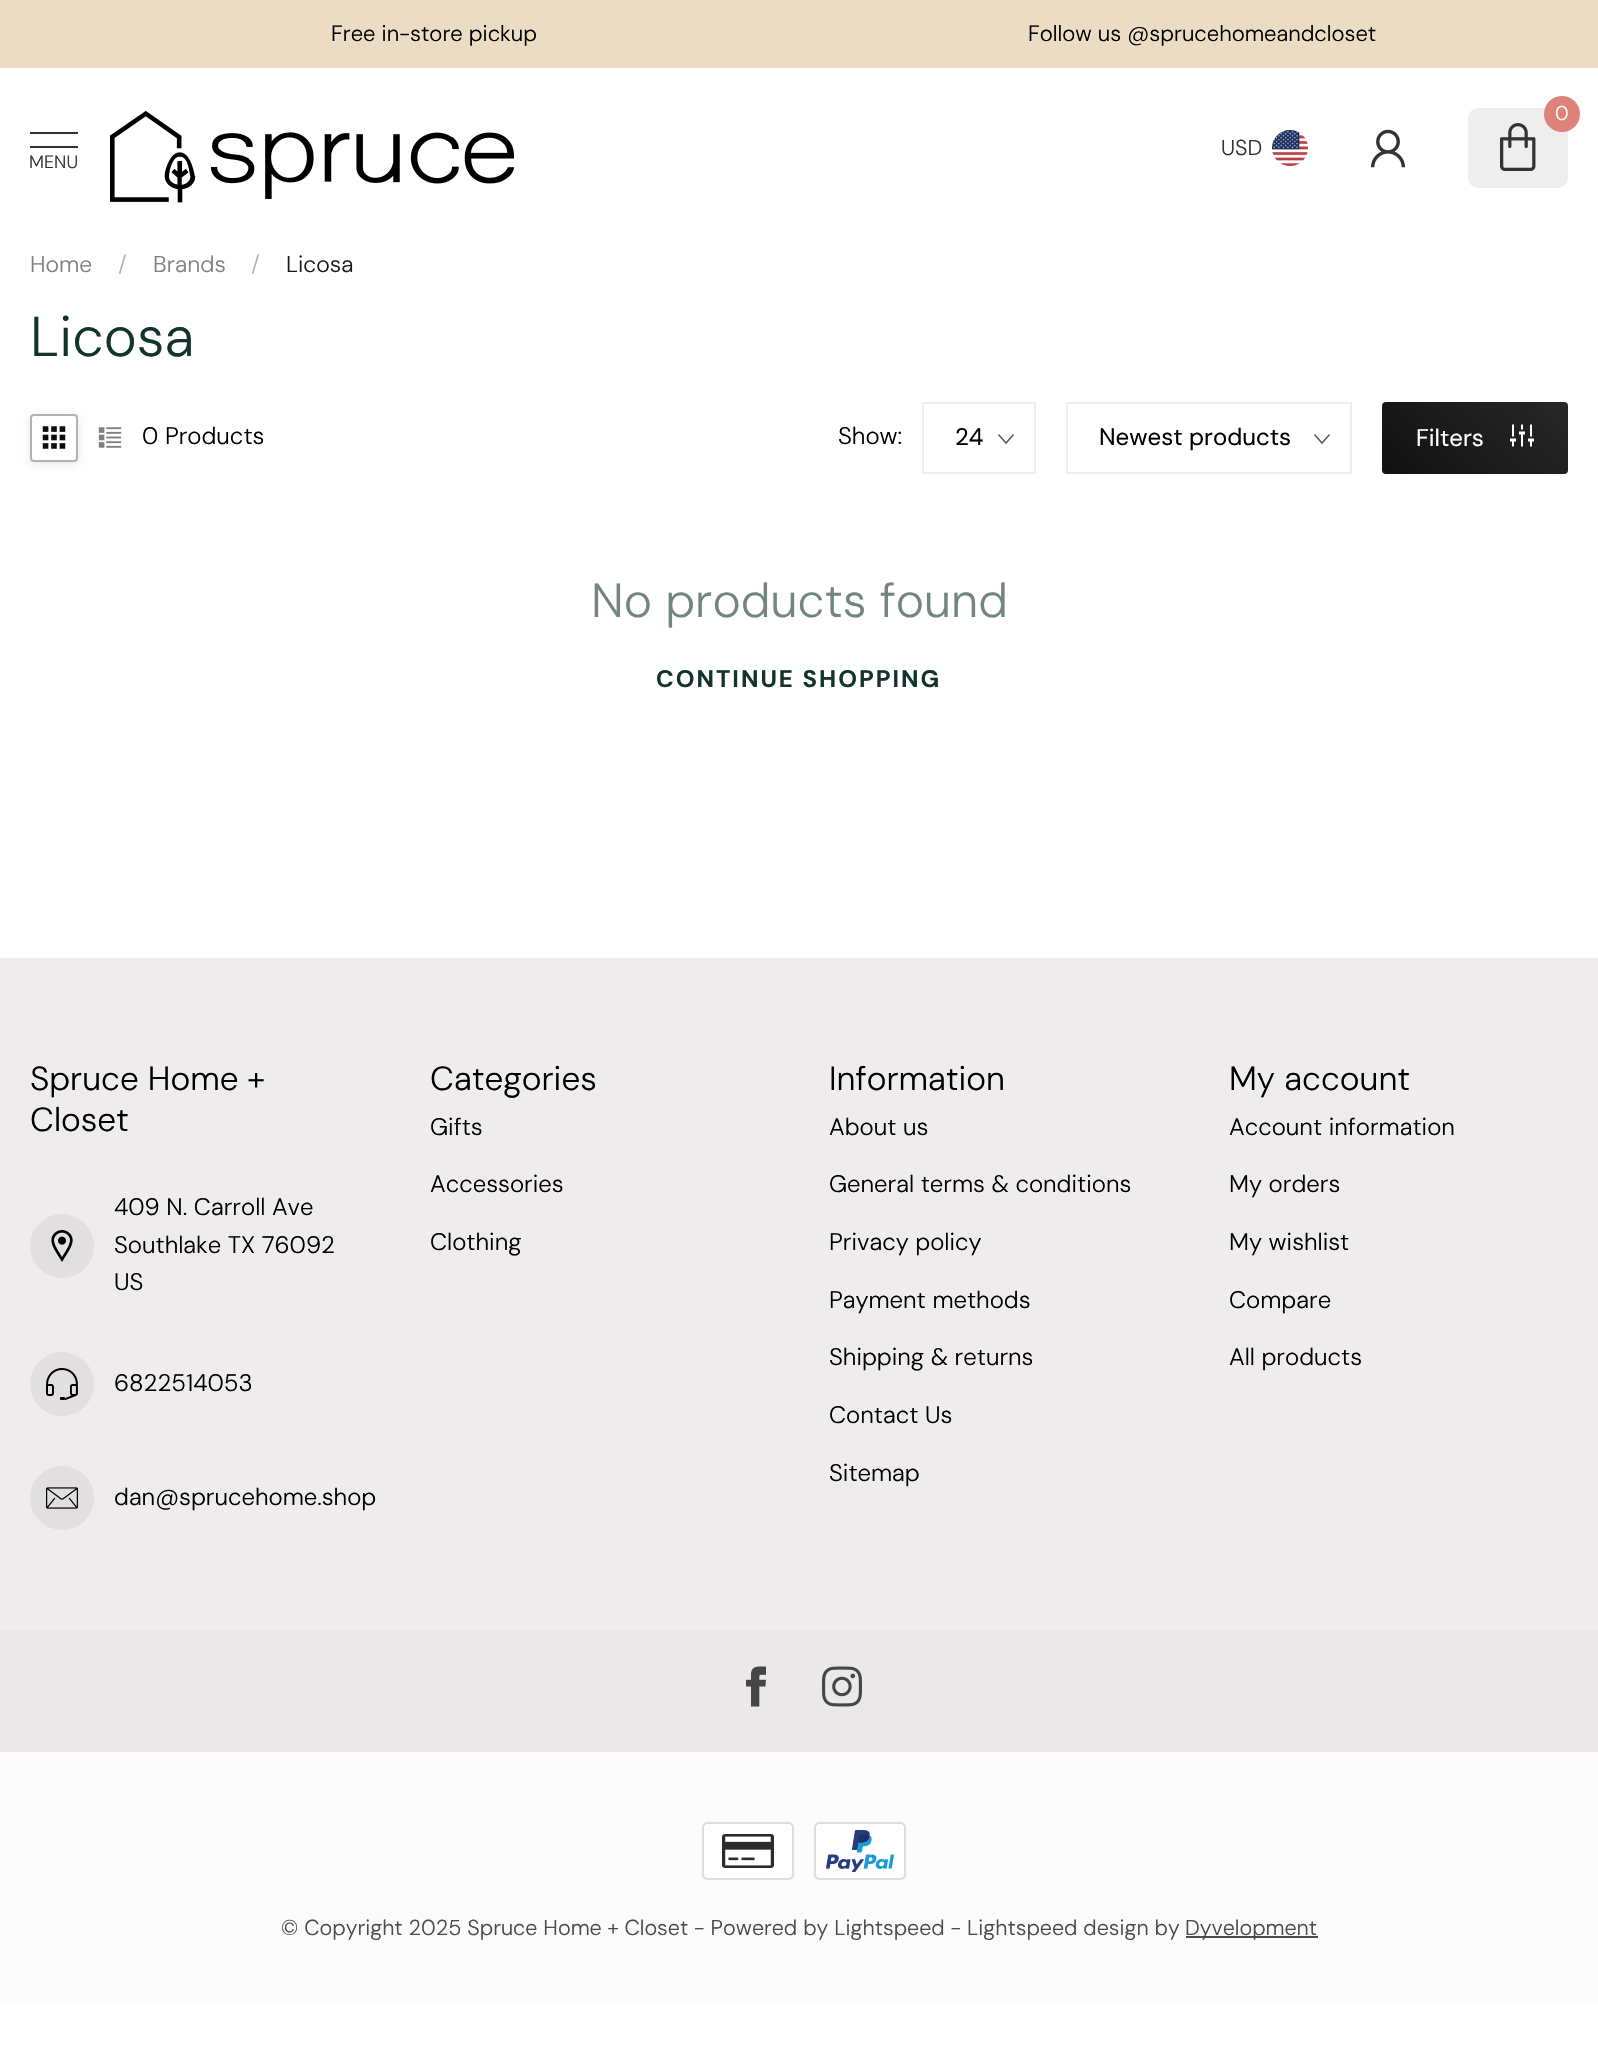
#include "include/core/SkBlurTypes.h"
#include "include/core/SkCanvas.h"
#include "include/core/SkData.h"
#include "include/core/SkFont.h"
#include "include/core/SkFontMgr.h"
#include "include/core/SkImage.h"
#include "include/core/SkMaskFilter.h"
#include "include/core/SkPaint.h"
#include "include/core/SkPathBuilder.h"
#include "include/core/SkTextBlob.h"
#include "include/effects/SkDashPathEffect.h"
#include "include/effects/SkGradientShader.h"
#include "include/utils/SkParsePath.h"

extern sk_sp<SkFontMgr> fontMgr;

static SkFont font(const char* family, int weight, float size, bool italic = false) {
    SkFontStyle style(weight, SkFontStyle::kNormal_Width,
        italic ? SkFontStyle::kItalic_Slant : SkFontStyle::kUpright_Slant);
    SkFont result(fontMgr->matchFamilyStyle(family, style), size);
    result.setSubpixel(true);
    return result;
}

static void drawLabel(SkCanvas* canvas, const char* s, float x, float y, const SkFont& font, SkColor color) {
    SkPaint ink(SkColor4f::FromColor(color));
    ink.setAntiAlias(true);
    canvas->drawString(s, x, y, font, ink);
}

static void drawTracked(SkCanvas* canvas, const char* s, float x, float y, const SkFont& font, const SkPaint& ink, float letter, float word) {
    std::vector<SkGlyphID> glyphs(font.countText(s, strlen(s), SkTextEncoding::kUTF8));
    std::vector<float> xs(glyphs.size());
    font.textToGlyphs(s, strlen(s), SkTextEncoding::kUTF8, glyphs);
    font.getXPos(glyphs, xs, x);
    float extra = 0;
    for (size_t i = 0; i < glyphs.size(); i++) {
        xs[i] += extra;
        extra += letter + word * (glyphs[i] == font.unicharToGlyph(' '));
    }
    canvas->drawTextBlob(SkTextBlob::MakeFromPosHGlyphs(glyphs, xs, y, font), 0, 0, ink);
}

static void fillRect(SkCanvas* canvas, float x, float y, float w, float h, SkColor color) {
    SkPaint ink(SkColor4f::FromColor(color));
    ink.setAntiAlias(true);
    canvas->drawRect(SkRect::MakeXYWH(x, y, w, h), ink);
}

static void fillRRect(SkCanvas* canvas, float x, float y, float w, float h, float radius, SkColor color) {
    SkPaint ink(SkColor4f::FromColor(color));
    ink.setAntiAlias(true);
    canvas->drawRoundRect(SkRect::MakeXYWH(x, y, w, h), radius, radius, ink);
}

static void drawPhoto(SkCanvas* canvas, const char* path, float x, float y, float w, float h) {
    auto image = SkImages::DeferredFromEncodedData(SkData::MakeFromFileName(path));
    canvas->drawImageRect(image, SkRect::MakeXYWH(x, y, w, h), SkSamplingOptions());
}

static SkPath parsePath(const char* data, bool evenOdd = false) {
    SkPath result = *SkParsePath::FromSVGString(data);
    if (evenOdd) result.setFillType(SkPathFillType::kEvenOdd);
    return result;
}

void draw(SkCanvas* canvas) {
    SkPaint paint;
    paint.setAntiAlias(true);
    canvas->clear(0xFFFFFFFF);
    fillRect(canvas, 0, 0, 1598, 68, 0xFFECDCC3);
    SkFont font1 = font("DM Sans", 300, 22.1f);
    drawLabel(canvas, "Free in-store pickup", 331, 41, font1, 0xFF000000);
    drawLabel(canvas, "Follow us @sprucehomeandcloset", 1028, 41, font1, 0xFF000000);
    fillRRect(canvas, 1468, 108, 100, 80, 10, 0xFFEEEEEE);
    paint.setColor(0xFFDF8279);
    canvas->drawCircle(1562, 114, 18, paint);
    SkFont font2 = font("DM Sans", 300, 20);
    drawLabel(canvas, "0", 1555, 120, font2, 0xFFFFFFFF);
    drawPhoto(canvas, "assets/img1.png", 1500, 123, 36, 48);
    SkFont font3 = font("DM Sans", 300, 21.6f);
    drawLabel(canvas, "USD", 1221, 155, font3, 0xFF333333);
    drawPhoto(canvas, "assets/img2.png", 1272, 130, 36, 36);
    drawPhoto(canvas, "assets/img3.png", 1371, 129, 34, 39);
    fillRect(canvas, 30, 132, 48, 2, 0xFF333333);
    fillRect(canvas, 30, 146, 48, 2, 0xFF333333);
    SkFont font4 = font("DM Sans", 300, 18);
    drawLabel(canvas, "MENU", 29, 168, font4, 0xFF333333);
    drawPhoto(canvas, "assets/img4.png", 110, 111, 404, 92);
    SkFont font5 = font("DM Sans", 300, 23);
    drawLabel(canvas, "Home", 30, 272, font5, 0xFF808080);
    drawLabel(canvas, "/", 118, 272, font5, 0xFFB3B3B3);
    drawLabel(canvas, "Brands", 153, 272, font5, 0xFF808080);
    drawLabel(canvas, "/", 251, 272, font5, 0xFFB3B3B3);
    drawLabel(canvas, "Licosa", 286, 272, font5, 0xFF1A1A1A);
    SkFont font6 = font("DM Sans", 300, 56);
    drawLabel(canvas, "Licosa", 30, 356, font6, 0xFF13332D);
    canvas->save();
    canvas->clipPath(parsePath("M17 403H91V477H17ZM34 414H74C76 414 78 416 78 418V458C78 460 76 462 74 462H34C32 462 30 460 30 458V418C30 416 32 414 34 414Z", true), true);
    paint.setColor(0x1A000000);
    paint.setMaskFilter(SkMaskFilter::MakeBlur(kNormal_SkBlurStyle, 4));
    canvas->drawRoundRect(SkRect::MakeXYWH(30, 416, 48, 48), 4, 4, paint);
    paint.setMaskFilter(nullptr);
    canvas->restore();
    paint.setStroke(true);
    paint.setStrokeWidth(2);
    paint.setColor(0xFFB2B2B2);
    canvas->drawRoundRect(SkRect::MakeXYWH(31, 415, 46, 46), 3, 3, paint);
    drawPhoto(canvas, "assets/img5.png", 42, 426, 24, 23);
    drawPhoto(canvas, "assets/img6.png", 98, 427, 24, 21);
    SkFont font7 = font("DM Sans", 300, 24);
    drawLabel(canvas, "0 Products", 142, 444, font7, 0xFF000000);
    drawLabel(canvas, "Show:", 838, 444, font7, 0xFF000000);
    paint.setStrokeWidth(1.5f);
    paint.setColor(0xFF595959);
    canvas->drawPath(parsePath("M1013.5 434.5L1006 443L998.5 434.5"), paint);
    paint.setStrokeWidth(2);
    paint.setColor(0xFFEEEEEE);
    canvas->drawRect(SkRect::MakeXYWH(923, 403, 112, 70), paint);
    SkFont font8 = font("DM Sans", 400, 24);
    drawLabel(canvas, "24", 955, 445, font8, 0xFF000000);
    paint.setStrokeWidth(1.5f);
    paint.setColor(0xFF595959);
    canvas->drawPath(parsePath("M1329.5 434.5L1322 443L1314.5 434.5"), paint);
    paint.setStrokeWidth(2);
    paint.setColor(0xFFEEEEEE);
    canvas->drawRect(SkRect::MakeXYWH(1067, 403, 284, 70), paint);
    drawLabel(canvas, "Newest products", 1099, 445, font8, 0xFF000000);
    paint.setStroke(false);
    {
        const SkColor colors[] = {0xFF111111, 0xFF282828};
        const float stops[] = {0, 1};
        const SkPoint ends[] = {{1411, 503}, {1540, 374}};
        paint.setShader(SkGradientShader::MakeLinear(ends, colors, stops, 2, SkTileMode::kClamp));
        paint.setAlpha(255);
    }
    canvas->drawRoundRect(SkRect::MakeXYWH(1382, 402, 186, 72), 4, 4, paint);
    drawLabel(canvas, "Filters", 1416, 446, font8, 0xFFFFFFFF);
    drawPhoto(canvas, "assets/img7.png", 1510, 424, 24, 23);
    SkFont font9 = font("DM Sans", 300, 48);
    drawLabel(canvas, "No products found", 591, 617, font9, 0xFF718581);
    SkFont font10 = font("DM Sans", 700, 24);
    paint.setShader(nullptr);
    paint.setColor(0xFF13332D);
    drawTracked(canvas, "CONTINUE SHOPPING", 656, 687, font10, paint, 2, 0);
    fillRect(canvas, 0, 958, 1598, 672, 0xFFEEECEC);
    SkFont font11 = font("DM Sans", 300, 33.5f);
    drawLabel(canvas, "Spruce Home +", 30, 1090, font11, 0xFF000000);
    drawLabel(canvas, "Closet", 30, 1131, font11, 0xFF000000);
    paint.setColor(0xFFE1DFDF);
    canvas->drawCircle(62, 1246, 32, paint);
    drawPhoto(canvas, "assets/img8.png", 51, 1230, 22, 32);
    drawLabel(canvas, "409 N. Carroll Ave", 114, 1215, font7, 0xFF000000);
    drawLabel(canvas, "Southlake TX 76092", 114, 1253, font7, 0xFF000000);
    drawLabel(canvas, "US", 114, 1290, font7, 0xFF000000);
    canvas->drawCircle(62, 1384, 32, paint);
    drawPhoto(canvas, "assets/img9.png", 46, 1368, 32, 32);
    drawLabel(canvas, "6822514053", 114, 1391, font7, 0xFF000000);
    canvas->drawCircle(62, 1498, 32, paint);
    drawPhoto(canvas, "assets/img10.png", 46, 1487, 32, 22);
    drawLabel(canvas, "dan@sprucehome.shop", 114, 1505, font7, 0xFF000000);
    drawLabel(canvas, "Categories", 430, 1090, font11, 0xFF000000);
    drawLabel(canvas, "Gifts", 430, 1135, font7, 0xFF000000);
    drawLabel(canvas, "Accessories", 430, 1192, font7, 0xFF000000);
    drawLabel(canvas, "Clothing", 430, 1250, font7, 0xFF000000);
    drawLabel(canvas, "Information", 829, 1090, font11, 0xFF000000);
    drawLabel(canvas, "About us", 829, 1135, font7, 0xFF000000);
    drawLabel(canvas, "General terms & conditions", 829, 1192, font7, 0xFF000000);
    drawLabel(canvas, "Privacy policy", 829, 1250, font7, 0xFF000000);
    drawLabel(canvas, "Payment methods", 829, 1308, font7, 0xFF000000);
    drawLabel(canvas, "Shipping & returns", 829, 1365, font7, 0xFF000000);
    drawLabel(canvas, "Contact Us", 829, 1423, font7, 0xFF000000);
    drawLabel(canvas, "Sitemap", 829, 1481, font7, 0xFF000000);
    drawLabel(canvas, "My account", 1229, 1090, font11, 0xFF000000);
    drawLabel(canvas, "Account information", 1229, 1135, font7, 0xFF000000);
    drawLabel(canvas, "My orders", 1229, 1192, font7, 0xFF000000);
    drawLabel(canvas, "My wishlist", 1229, 1250, font7, 0xFF000000);
    drawLabel(canvas, "Compare", 1229, 1308, font7, 0xFF000000);
    drawLabel(canvas, "All products", 1229, 1365, font7, 0xFF000000);
    fillRect(canvas, 0, 1630, 1598, 122, 0xFFEAE8E8);
    drawPhoto(canvas, "assets/img11.png", 746, 1666, 20, 41);
    drawPhoto(canvas, "assets/img12.png", 822, 1666, 40, 41);
    fillRect(canvas, 0, 1752, 1598, 252, 0xFFFBFBFB);
    drawPhoto(canvas, "assets/img13.png", 702, 1822, 92, 58);
    drawPhoto(canvas, "assets/img14.png", 814, 1822, 92, 58);
    drawLabel(canvas, "© Copyright 2025 Spruce Home + Closet - Powered by Lightspeed - Lightspeed design by", 281, 1935, font3, 0xFF4B4B4B);
    fillRect(canvas, 1186, 1936, 132, 2, 0xFF4B4B4B);
    drawLabel(canvas, "Dyvelopment", 1185, 1935, font3, 0xFF4B4B4B);
}
